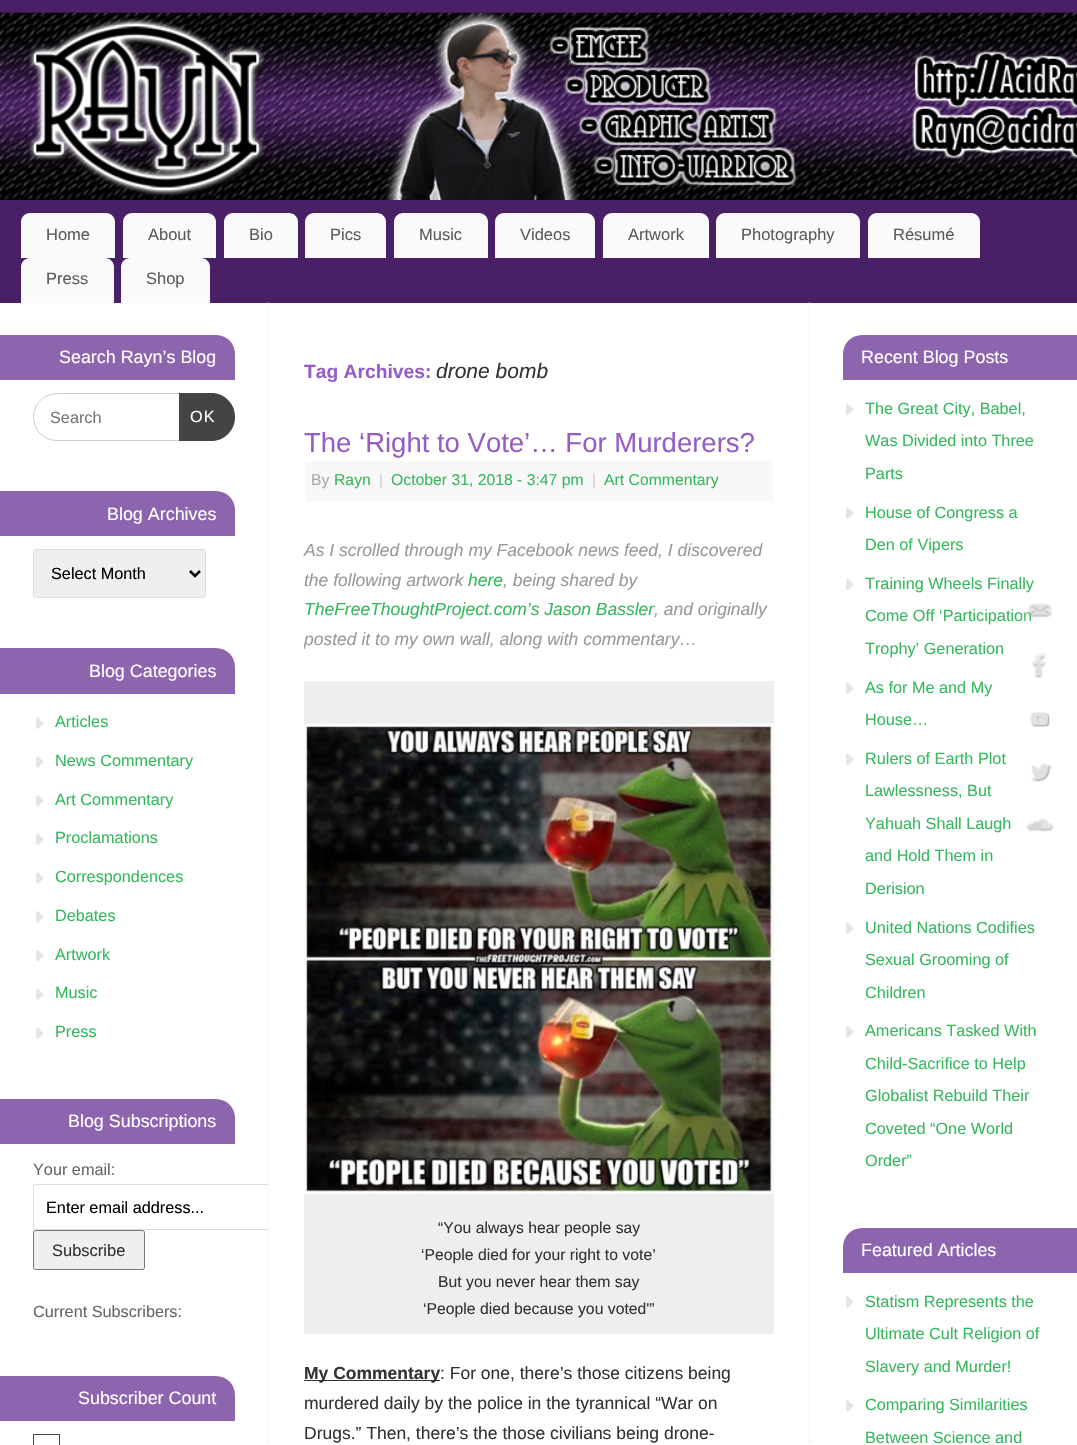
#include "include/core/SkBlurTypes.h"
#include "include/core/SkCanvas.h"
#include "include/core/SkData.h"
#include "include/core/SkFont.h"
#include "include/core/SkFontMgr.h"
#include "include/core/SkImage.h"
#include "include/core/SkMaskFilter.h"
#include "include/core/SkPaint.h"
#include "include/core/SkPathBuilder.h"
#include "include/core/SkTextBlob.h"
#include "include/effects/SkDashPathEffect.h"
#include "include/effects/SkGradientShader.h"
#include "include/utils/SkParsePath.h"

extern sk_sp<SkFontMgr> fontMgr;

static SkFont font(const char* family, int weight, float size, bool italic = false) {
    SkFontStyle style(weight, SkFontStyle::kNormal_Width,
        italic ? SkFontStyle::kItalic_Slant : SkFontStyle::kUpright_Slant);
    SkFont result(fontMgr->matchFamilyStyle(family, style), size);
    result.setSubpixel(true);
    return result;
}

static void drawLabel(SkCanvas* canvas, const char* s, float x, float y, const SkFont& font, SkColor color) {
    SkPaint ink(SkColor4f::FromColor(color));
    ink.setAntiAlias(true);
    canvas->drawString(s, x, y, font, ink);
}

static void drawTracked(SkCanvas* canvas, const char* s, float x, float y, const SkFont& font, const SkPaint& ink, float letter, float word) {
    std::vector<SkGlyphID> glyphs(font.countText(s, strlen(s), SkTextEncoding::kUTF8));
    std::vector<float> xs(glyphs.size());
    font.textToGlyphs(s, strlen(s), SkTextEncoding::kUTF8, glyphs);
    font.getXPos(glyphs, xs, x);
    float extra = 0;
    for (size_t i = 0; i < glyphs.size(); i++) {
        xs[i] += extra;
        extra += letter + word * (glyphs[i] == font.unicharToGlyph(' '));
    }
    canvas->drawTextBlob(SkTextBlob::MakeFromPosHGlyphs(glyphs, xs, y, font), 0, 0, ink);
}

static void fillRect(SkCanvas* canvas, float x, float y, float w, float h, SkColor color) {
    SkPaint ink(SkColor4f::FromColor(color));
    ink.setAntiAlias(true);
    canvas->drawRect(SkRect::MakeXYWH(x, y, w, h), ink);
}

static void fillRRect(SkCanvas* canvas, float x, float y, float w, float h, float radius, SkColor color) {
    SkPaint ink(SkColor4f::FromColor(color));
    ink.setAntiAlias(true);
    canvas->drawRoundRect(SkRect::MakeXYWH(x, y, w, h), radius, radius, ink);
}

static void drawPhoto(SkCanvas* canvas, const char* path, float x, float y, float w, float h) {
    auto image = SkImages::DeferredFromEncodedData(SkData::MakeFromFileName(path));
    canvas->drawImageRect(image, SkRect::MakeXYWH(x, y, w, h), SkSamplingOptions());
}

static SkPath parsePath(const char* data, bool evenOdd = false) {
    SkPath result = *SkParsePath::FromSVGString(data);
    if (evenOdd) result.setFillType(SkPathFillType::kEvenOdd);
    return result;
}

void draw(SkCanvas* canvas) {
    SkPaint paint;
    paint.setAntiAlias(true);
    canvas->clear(0xFF492065);
    drawPhoto(canvas, "assets/img1.png", 0, 12, 1077, 188);
    paint.setColor(0xFFFAFAFA);
    canvas->drawPath(parsePath("M30 213H106C111 213 115 217 115 222V258H21V222C21 217 25 213 30 213Z"), paint);
    SkFont font1 = font("Liberation Sans", 400, 16.5f);
    drawLabel(canvas, "Home", 46, 240, font1, 0xFF5F5B5B);
    canvas->drawPath(parsePath("M132 213H207C212 213 216 217 216 222V258H123V222C123 217 127 213 132 213Z"), paint);
    drawLabel(canvas, "About", 148, 240, font1, 0xFF5F5B5B);
    canvas->drawPath(parsePath("M233 213H289C294 213 298 217 298 222V258H224V222C224 217 228 213 233 213Z"), paint);
    drawLabel(canvas, "Bio", 249, 240, font1, 0xFF5F5B5B);
    canvas->drawPath(parsePath("M314 213H377C382 213 386 217 386 222V258H305V222C305 217 309 213 314 213Z"), paint);
    drawLabel(canvas, "Pics", 330, 240, font1, 0xFF5F5B5B);
    canvas->drawPath(parsePath("M403 213H479C484 213 488 217 488 222V258H394V222C394 217 398 213 403 213Z"), paint);
    drawLabel(canvas, "Music", 419, 240, font1, 0xFF5F5B5B);
    canvas->drawPath(parsePath("M504 213H586C591 213 595 217 595 222V258H495V222C495 217 499 213 504 213Z"), paint);
    drawLabel(canvas, "Videos", 520, 240, font1, 0xFF5F5B5B);
    canvas->drawPath(parsePath("M612 213H700C705 213 709 217 709 222V258H603V222C603 217 607 213 612 213Z"), paint);
    drawLabel(canvas, "Artwork", 628, 240, font1, 0xFF5F5B5B);
    canvas->drawPath(parsePath("M725 213H851C856 213 860 217 860 222V258H716V222C716 217 720 213 725 213Z"), paint);
    drawLabel(canvas, "Photography", 741, 240, font1, 0xFF5F5B5B);
    canvas->drawPath(parsePath("M877 213H971C976 213 980 217 980 222V258H868V222C868 217 872 213 877 213Z"), paint);
    drawLabel(canvas, "Résumé", 893, 240, font1, 0xFF5F5B5B);
    canvas->drawPath(parsePath("M30 258H105C110 258 114 262 114 267V303H21V267C21 262 25 258 30 258Z"), paint);
    drawLabel(canvas, "Press", 46, 284, font1, 0xFF5F5B5B);
    canvas->drawPath(parsePath("M130 258H201C206 258 210 262 210 267V303H121V267C121 262 125 258 130 258Z"), paint);
    drawLabel(canvas, "Shop", 146, 284, font1, 0xFF5F5B5B);
    fillRect(canvas, 0, 303, 1077, 1142, 0xFFFFFFFF);
    paint.setStroke(true);
    paint.setStrokeWidth(1.2f);
    paint.setColor(0xFFEEEEEE);
    paint.setPathEffect(SkDashPathEffect::Make({{1.25f, 1.25f}}, 0));
    canvas->drawPath(parsePath("M268 302.5V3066"), paint);
    paint.setPathEffect(nullptr);
    paint.setStroke(false);
    paint.setColor(0xFF8D64AE);
    canvas->drawPath(parsePath("M0 335H216C226.5 335 235 343.5 235 354V380H0Z"), paint);
    SkFont font2 = font("Liberation Sans", 400, 17.9f);
    drawLabel(canvas, "Search Rayn’s Blog", 59, 363, font2, 0xFFFFFFFF);
    paint.setStroke(true);
    paint.setStrokeWidth(1);
    paint.setColor(0xFFCCCCCC);
    canvas->drawRoundRect(SkRect::MakeXYWH(33.5f, 393.5f, 201, 47), 23.5f, 23.5f, paint);
    SkFont font3 = font("Liberation Sans", 400, 16.25f);
    drawLabel(canvas, "Search", 50, 423, font3, 0xFF757575);
    paint.setStroke(false);
    paint.setColor(0xFF444444);
    canvas->drawPath(parsePath("M179 393H211C224.5 393 235 403.5 235 417C235 430.5 224.5 441 211 441H179Z"), paint);
    paint.setColor(0xFFFFFFFF);
    drawTracked(canvas, "OK", 190, 422, font3, paint, 1, 0);
    paint.setColor(0xFF8D64AE);
    canvas->drawPath(parsePath("M0 491H216C226.5 491 235 499.5 235 510V536H0Z"), paint);
    drawLabel(canvas, "Blog Archives", 107, 520, font2, 0xFFFFFFFF);
    paint.setColor(0xFFEFEFEF);
    canvas->drawRoundRect(SkRect::MakeXYWH(33.5f, 549.5f, 172, 48), 2, 2, paint);
    paint.setStroke(true);
    paint.setColor(0xFFDDDDDD);
    canvas->drawRoundRect(SkRect::MakeXYWH(33.5f, 549.5f, 172, 48), 2, 2, paint);
    paint.setStrokeWidth(2.5f);
    paint.setColor(0xFF000000);
    canvas->drawPath(parsePath("M190 571L195 576L200 571"), paint);
    drawLabel(canvas, "Select Month", 51, 579, font3, 0xFF000000);
    paint.setStroke(false);
    paint.setColor(0xFF8D64AE);
    canvas->drawPath(parsePath("M0 648H216C226.5 648 235 656.5 235 667V694H0Z"), paint);
    drawLabel(canvas, "Blog Categories", 89, 677, font2, 0xFFFFFFFF);
    drawPhoto(canvas, "assets/img2.png", 36, 717, 8, 12);
    drawLabel(canvas, "Articles", 55, 727, font3, 0xFF37B85E);
    drawPhoto(canvas, "assets/img3.png", 36, 756, 8, 12);
    drawLabel(canvas, "News Commentary", 55, 766, font3, 0xFF37B85E);
    drawPhoto(canvas, "assets/img4.png", 36, 795, 8, 12);
    drawLabel(canvas, "Art Commentary", 55, 805, font3, 0xFF37B85E);
    drawPhoto(canvas, "assets/img5.png", 36, 833, 8, 12);
    drawLabel(canvas, "Proclamations", 55, 843, font3, 0xFF37B85E);
    drawPhoto(canvas, "assets/img2.png", 36, 872, 8, 12);
    drawLabel(canvas, "Correspondences", 55, 882, font3, 0xFF37B85E);
    drawPhoto(canvas, "assets/img3.png", 36, 911, 8, 12);
    drawLabel(canvas, "Debates", 55, 921, font3, 0xFF37B85E);
    drawPhoto(canvas, "assets/img4.png", 36, 950, 8, 12);
    drawLabel(canvas, "Artwork", 55, 960, font3, 0xFF37B85E);
    drawPhoto(canvas, "assets/img5.png", 36, 988, 8, 12);
    drawLabel(canvas, "Music", 55, 998, font3, 0xFF37B85E);
    drawPhoto(canvas, "assets/img2.png", 36, 1027, 8, 12);
    drawLabel(canvas, "Press", 55, 1037, font3, 0xFF37B85E);
    canvas->drawPath(parsePath("M0 1099H216C226.5 1099 235 1107.5 235 1118V1144H0Z"), paint);
    drawLabel(canvas, "Blog Subscriptions", 68, 1127, font2, 0xFFFFFFFF);
    drawLabel(canvas, "Your email:", 33, 1175, font3, 0xFF666666);
    paint.setColor(0xFFFFFFFF);
    canvas->drawPath(parsePath("M35.5 1184H268V1230H35.5C34 1230 33 1229 33 1227.5V1186.5C33 1185 34 1184 35.5 1184Z"), paint);
    canvas->save();
    canvas->clipRect(SkRect::MakeXYWH(0, 303, 268, 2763));
    paint.setStroke(true);
    paint.setStrokeWidth(1);
    paint.setColor(0xFFDDDDDD);
    canvas->drawRoundRect(SkRect::MakeXYWH(33.5f, 1184.5f, 246, 45), 2, 2, paint);
    canvas->restore();
    drawLabel(canvas, "Enter email address...", 46, 1213, font3, 0xFF000000);
    paint.setStroke(false);
    paint.setColor(0xFFEFEFEF);
    canvas->drawRoundRect(SkRect::MakeXYWH(33.5f, 1230.5f, 111, 39), 2, 2, paint);
    paint.setStroke(true);
    paint.setColor(0xFF767676);
    canvas->drawRoundRect(SkRect::MakeXYWH(33.5f, 1230.5f, 111, 39), 2, 2, paint);
    drawLabel(canvas, "Subscribe", 52, 1256, font1, 0xFF333333);
    drawLabel(canvas, "Current Subscribers:", 33, 1317, font3, 0xFF666666);
    paint.setStroke(false);
    paint.setColor(0xFF8D64AE);
    canvas->drawPath(parsePath("M0 1376H216C226.5 1376 235 1384.5 235 1395V1421H0Z"), paint);
    drawLabel(canvas, "Subscriber Count", 78, 1404, font2, 0xFFFFFFFF);
    paint.setStroke(true);
    paint.setColor(0xFF444444);
    canvas->drawRect(SkRect::MakeXYWH(33.5f, 1434.5f, 26, 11), paint);
    SkFont font4 = font("Liberation Sans", 700, 19.25f);
    drawLabel(canvas, "Tag Archives:", 304, 378, font4, 0xFF965EC4);
    SkFont font5 = font("Liberation Sans", 400, 21, true);
    drawLabel(canvas, "drone bomb", 436, 378, font5, 0xFF333333);
    SkFont font6 = font("Liberation Sans", 400, 27.5f);
    drawLabel(canvas, "The ‘Right to Vote’… For Murderers?", 304, 452, font6, 0xFF965EC4);
    fillRect(canvas, 305, 461, 468, 40, 0xFFF8F8F8);
    SkFont font7 = font("Liberation Sans", 400, 15.75f);
    drawLabel(canvas, "By", 311, 485, font7, 0xFFAAAAAA);
    drawLabel(canvas, "Rayn", 334, 485, font7, 0xFF37B85E);
    drawLabel(canvas, "|", 379, 485, font7, 0xFFD1D1D1);
    drawLabel(canvas, "October 31, 2018 - 3:47 pm", 391, 485, font7, 0xFF37B85E);
    drawLabel(canvas, "|", 592, 485, font7, 0xFFD1D1D1);
    drawLabel(canvas, "Art Commentary", 604, 485, font7, 0xFF37B85E);
    SkFont font8 = font("Liberation Sans", 400, 17.5f, true);
    drawLabel(canvas, "As I scrolled through my Facebook news feed, I discovered", 304, 556, font8, 0xFF999999);
    drawLabel(canvas, "the following artwork", 304, 586, font8, 0xFF999999);
    drawLabel(canvas, "here", 468, 586, font8, 0xFF37B85E);
    drawLabel(canvas, ", being shared by", 503, 586, font8, 0xFF999999);
    drawLabel(canvas, "TheFreeThoughtProject.com’s Jason Bassler", 304, 615, font8, 0xFF37B85E);
    drawLabel(canvas, ", and originally", 654, 615, font8, 0xFF999999);
    canvas->save();
    canvas->clipRect(SkRect::MakeXYWH(304, 426, 470, 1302));
    drawLabel(canvas, "posted it to my own wall, along with commentary…", 304, 645, font8, 0xFF999999);
    canvas->restore();
    fillRRect(canvas, 304, 681, 470, 653, 2.5f, 0xFFEEEEEE);
    drawPhoto(canvas, "assets/img6.png", 539, 687, 1, 2);
    drawPhoto(canvas, "assets/img7.png", 304, 723, 470, 471);
    drawLabel(canvas, "“You always hear people say", 438, 1233, font7, 0xFF333333);
    drawLabel(canvas, "‘People died for your right to vote’", 421, 1260, font7, 0xFF333333);
    drawLabel(canvas, "But you never hear them say", 438, 1287, font7, 0xFF333333);
    drawLabel(canvas, "‘People died because you voted'”", 423, 1314, font7, 0xFF333333);
    fillRect(canvas, 304, 1380, 136, 1, 0xFF333333);
    SkFont font9 = font("Liberation Sans", 700, 17.5f);
    drawLabel(canvas, "My Commentary", 304, 1379, font9, 0xFF333333);
    SkFont font10 = font("Liberation Sans", 400, 17.5f);
    drawLabel(canvas, ": For one, there’s those citizens being", 440, 1379, font10, 0xFF333333);
    drawLabel(canvas, "murdered daily by the police in the tyrannical “War on", 304, 1409, font10, 0xFF333333);
    drawLabel(canvas, "Drugs.” Then, there’s the those civilians being drone-", 304, 1439, font10, 0xFF333333);
    paint.setStrokeWidth(1.2f);
    paint.setColor(0xFFEAEAEA);
    paint.setPathEffect(SkDashPathEffect::Make({{1.25f, 1.25f}}, 0));
    canvas->drawPath(parsePath("M809.5 302.5V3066"), paint);
    paint.setPathEffect(nullptr);
    paint.setStroke(false);
    paint.setColor(0xFF8D64AE);
    canvas->drawPath(parsePath("M862 335H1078V380H843V354C843 343.5 851.5 335 862 335Z"), paint);
    drawLabel(canvas, "Recent Blog Posts", 861, 363, font2, 0xFFFFFFFF);
    drawPhoto(canvas, "assets/img5.png", 846, 403, 8, 12);
    drawLabel(canvas, "The Great City, Babel,", 865, 414, font3, 0xFF37B85E);
    drawLabel(canvas, "Was Divided into Three", 865, 446, font3, 0xFF37B85E);
    drawLabel(canvas, "Parts", 865, 479, font3, 0xFF37B85E);
    drawPhoto(canvas, "assets/img2.png", 846, 507, 8, 12);
    drawLabel(canvas, "House of Congress a", 865, 518, font3, 0xFF37B85E);
    drawLabel(canvas, "Den of Vipers", 865, 550, font3, 0xFF37B85E);
    drawPhoto(canvas, "assets/img5.png", 846, 578, 8, 12);
    drawLabel(canvas, "Training Wheels Finally", 865, 589, font3, 0xFF37B85E);
    drawLabel(canvas, "Come Off ‘Participation", 865, 621, font3, 0xFF37B85E);
    drawLabel(canvas, "Trophy’ Generation", 865, 654, font3, 0xFF37B85E);
    drawPhoto(canvas, "assets/img2.png", 846, 682, 8, 12);
    drawLabel(canvas, "As for Me and My", 865, 693, font3, 0xFF37B85E);
    drawLabel(canvas, "House…", 865, 725, font3, 0xFF37B85E);
    drawPhoto(canvas, "assets/img5.png", 846, 753, 8, 12);
    drawLabel(canvas, "Rulers of Earth Plot", 865, 764, font3, 0xFF37B85E);
    drawLabel(canvas, "Lawlessness, But", 865, 796, font3, 0xFF37B85E);
    drawLabel(canvas, "Yahuah Shall Laugh", 865, 829, font3, 0xFF37B85E);
    drawLabel(canvas, "and Hold Them in", 865, 861, font3, 0xFF37B85E);
    drawLabel(canvas, "Derision", 865, 894, font3, 0xFF37B85E);
    drawPhoto(canvas, "assets/img2.png", 846, 922, 8, 12);
    drawLabel(canvas, "United Nations Codifies", 865, 933, font3, 0xFF37B85E);
    drawLabel(canvas, "Sexual Grooming of", 865, 965, font3, 0xFF37B85E);
    drawLabel(canvas, "Children", 865, 998, font3, 0xFF37B85E);
    drawPhoto(canvas, "assets/img3.png", 846, 1026, 8, 12);
    drawLabel(canvas, "Americans Tasked With", 865, 1036, font3, 0xFF37B85E);
    drawLabel(canvas, "Child-Sacrifice to Help", 865, 1069, font3, 0xFF37B85E);
    drawLabel(canvas, "Globalist Rebuild Their", 865, 1101, font3, 0xFF37B85E);
    drawLabel(canvas, "Coveted “One World", 865, 1134, font3, 0xFF37B85E);
    drawLabel(canvas, "Order”", 865, 1166, font3, 0xFF37B85E);
    canvas->drawPath(parsePath("M862 1228H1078V1273H843V1247C843 1236.5 851.5 1228 862 1228Z"), paint);
    drawLabel(canvas, "Featured Articles", 861, 1256, font2, 0xFFFFFFFF);
    drawPhoto(canvas, "assets/img3.png", 846, 1296, 8, 12);
    drawLabel(canvas, "Statism Represents the", 865, 1307, font3, 0xFF37B85E);
    drawLabel(canvas, "Ultimate Cult Religion of", 865, 1339, font3, 0xFF37B85E);
    drawLabel(canvas, "Slavery and Murder!", 865, 1372, font3, 0xFF37B85E);
    drawPhoto(canvas, "assets/img4.png", 846, 1400, 8, 12);
    drawLabel(canvas, "Comparing Similarities", 865, 1410, font3, 0xFF37B85E);
    drawLabel(canvas, "Between Science and", 865, 1443, font3, 0xFF37B85E);
    fillRRect(canvas, 1021, 593, 38, 37, 18.5f, 0x1AFFFFFF);
    drawPhoto(canvas, "assets/img8.png", 1028, 603, 24, 15);
    drawPhoto(canvas, "assets/img9.png", 1032, 653, 14, 26);
    drawPhoto(canvas, "assets/img10.png", 1030, 712, 20, 15);
    drawPhoto(canvas, "assets/img11.png", 1031, 763, 21, 19);
    drawPhoto(canvas, "assets/img12.png", 1026, 818, 28, 14);
}
